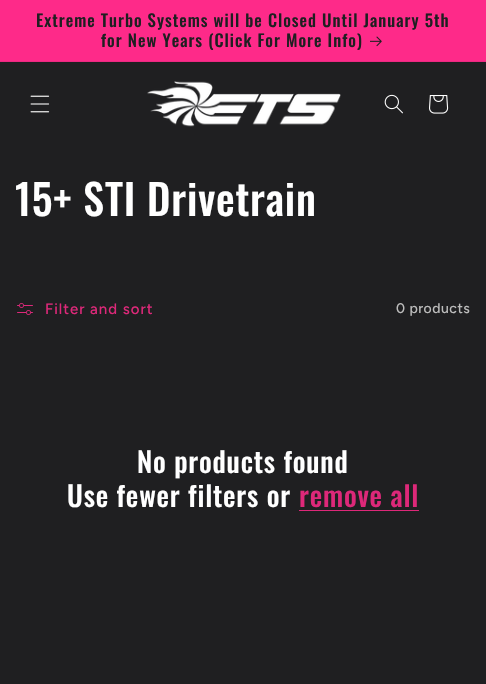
#include "include/core/SkBlurTypes.h"
#include "include/core/SkCanvas.h"
#include "include/core/SkData.h"
#include "include/core/SkFont.h"
#include "include/core/SkFontMgr.h"
#include "include/core/SkImage.h"
#include "include/core/SkMaskFilter.h"
#include "include/core/SkPaint.h"
#include "include/core/SkPathBuilder.h"
#include "include/core/SkTextBlob.h"
#include "include/effects/SkDashPathEffect.h"
#include "include/effects/SkGradientShader.h"
#include "include/utils/SkParsePath.h"

extern sk_sp<SkFontMgr> fontMgr;

static SkFont font(const char* family, int weight, float size, bool italic = false) {
    SkFontStyle style(weight, SkFontStyle::kNormal_Width,
        italic ? SkFontStyle::kItalic_Slant : SkFontStyle::kUpright_Slant);
    SkFont result(fontMgr->matchFamilyStyle(family, style), size);
    result.setSubpixel(true);
    return result;
}

static void drawTracked(SkCanvas* canvas, const char* s, float x, float y, const SkFont& font, const SkPaint& ink, float letter, float word) {
    std::vector<SkGlyphID> glyphs(font.countText(s, strlen(s), SkTextEncoding::kUTF8));
    std::vector<float> xs(glyphs.size());
    font.textToGlyphs(s, strlen(s), SkTextEncoding::kUTF8, glyphs);
    font.getXPos(glyphs, xs, x);
    float extra = 0;
    for (size_t i = 0; i < glyphs.size(); i++) {
        xs[i] += extra;
        extra += letter + word * (glyphs[i] == font.unicharToGlyph(' '));
    }
    canvas->drawTextBlob(SkTextBlob::MakeFromPosHGlyphs(glyphs, xs, y, font), 0, 0, ink);
}

static void fillRect(SkCanvas* canvas, float x, float y, float w, float h, SkColor color) {
    SkPaint ink(SkColor4f::FromColor(color));
    ink.setAntiAlias(true);
    canvas->drawRect(SkRect::MakeXYWH(x, y, w, h), ink);
}

static void drawPhoto(SkCanvas* canvas, const char* path, float x, float y, float w, float h) {
    auto image = SkImages::DeferredFromEncodedData(SkData::MakeFromFileName(path));
    canvas->drawImageRect(image, SkRect::MakeXYWH(x, y, w, h), SkSamplingOptions());
}

void draw(SkCanvas* canvas) {
    SkPaint paint;
    paint.setAntiAlias(true);
    canvas->clear(0xFF1F1F21);
    fillRect(canvas, 0, 0, 486, 61, 0xFFFE2A89);
    fillRect(canvas, 0, 61, 486, 1, 0xFFEC2981);
    SkFont font1 = font("Oswald", 500, 16.8f);
    paint.setColor(0xFF1F1F21);
    drawTracked(canvas, "Extreme Turbo Systems will be Closed Until January 5th", 36, 27, font1, paint, 1, 0);
    drawTracked(canvas, "for New Years (Click For More Info)", 101, 47, font1, paint, 1, 0);
    drawPhoto(canvas, "assets/img1.png", 370, 36, 12, 11);
    drawPhoto(canvas, "assets/img2.png", 30, 95, 20, 18);
    drawPhoto(canvas, "assets/img3.png", 147, 81, 194, 46);
    drawPhoto(canvas, "assets/img4.png", 384, 94, 19, 20);
    drawPhoto(canvas, "assets/img5.png", 429, 95, 20, 19);
    SkFont font2 = font("Oswald", 500, 42);
    paint.setColor(0xFFFFFFFF);
    drawTracked(canvas, "15+ STI Drivetrain", 15, 216, font2, paint, 0.8f, 0);
    drawPhoto(canvas, "assets/img6.png", 17, 303, 16, 12);
    SkFont font3 = font("Figtree", 500, 15);
    paint.setColor(0xFFDD2879);
    drawTracked(canvas, "Filter and sort", 45, 314, font3, paint, 1, 0);
    SkFont font4 = font("Figtree", 500, 14);
    paint.setColor(0xFFBCBCBC);
    drawTracked(canvas, "0 products", 396, 313, font4, paint, 0.5f, 0);
    SkFont font5 = font("Oswald", 500, 28);
    paint.setColor(0xFFFFFFFF);
    drawTracked(canvas, "No products found", 137, 473, font5, paint, 0.8f, 0);
    drawTracked(canvas, "Use fewer filters or", 67, 507, font5, paint, 0.8f, 0);
    paint.setColor(0xFFDD2879);
    drawTracked(canvas, "remove all", 299, 507, font5, paint, 0.8f, 0);
    fillRect(canvas, 299, 510, 120, 1, 0xFFDD2879);
}
